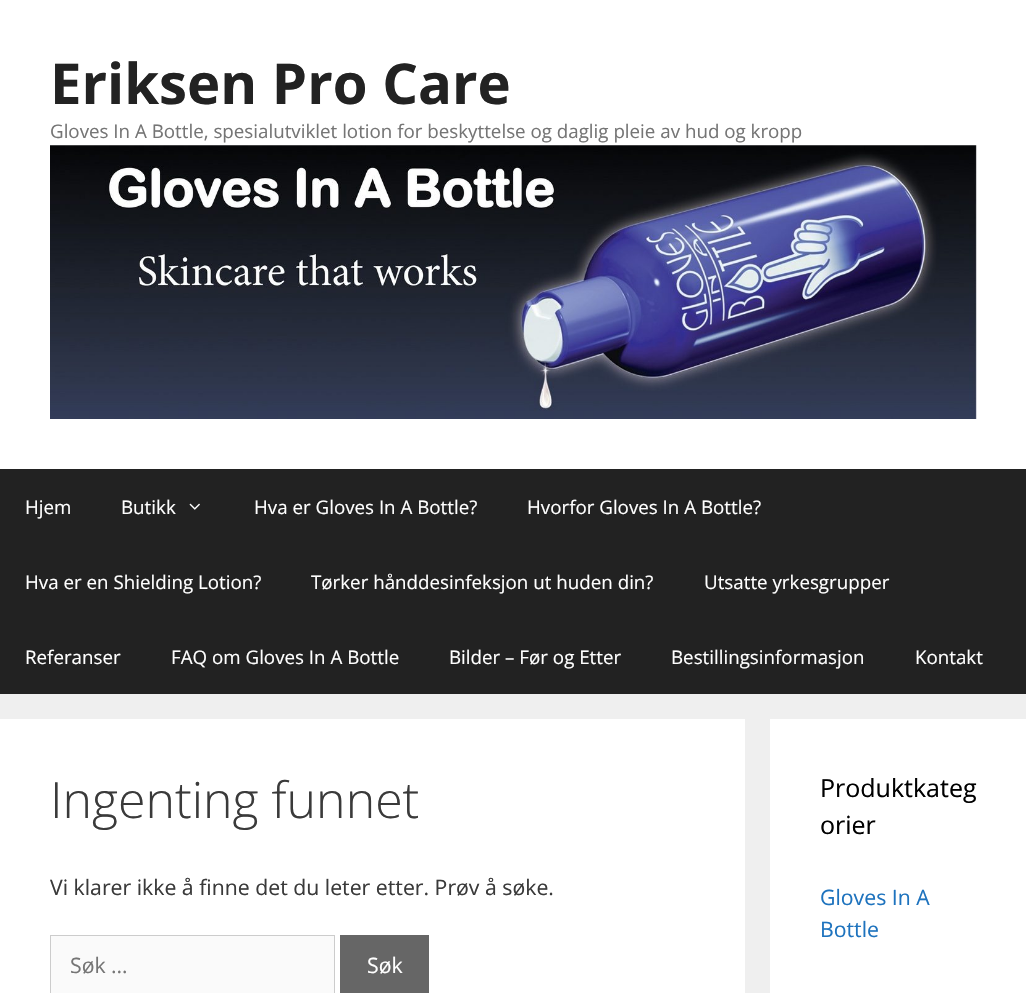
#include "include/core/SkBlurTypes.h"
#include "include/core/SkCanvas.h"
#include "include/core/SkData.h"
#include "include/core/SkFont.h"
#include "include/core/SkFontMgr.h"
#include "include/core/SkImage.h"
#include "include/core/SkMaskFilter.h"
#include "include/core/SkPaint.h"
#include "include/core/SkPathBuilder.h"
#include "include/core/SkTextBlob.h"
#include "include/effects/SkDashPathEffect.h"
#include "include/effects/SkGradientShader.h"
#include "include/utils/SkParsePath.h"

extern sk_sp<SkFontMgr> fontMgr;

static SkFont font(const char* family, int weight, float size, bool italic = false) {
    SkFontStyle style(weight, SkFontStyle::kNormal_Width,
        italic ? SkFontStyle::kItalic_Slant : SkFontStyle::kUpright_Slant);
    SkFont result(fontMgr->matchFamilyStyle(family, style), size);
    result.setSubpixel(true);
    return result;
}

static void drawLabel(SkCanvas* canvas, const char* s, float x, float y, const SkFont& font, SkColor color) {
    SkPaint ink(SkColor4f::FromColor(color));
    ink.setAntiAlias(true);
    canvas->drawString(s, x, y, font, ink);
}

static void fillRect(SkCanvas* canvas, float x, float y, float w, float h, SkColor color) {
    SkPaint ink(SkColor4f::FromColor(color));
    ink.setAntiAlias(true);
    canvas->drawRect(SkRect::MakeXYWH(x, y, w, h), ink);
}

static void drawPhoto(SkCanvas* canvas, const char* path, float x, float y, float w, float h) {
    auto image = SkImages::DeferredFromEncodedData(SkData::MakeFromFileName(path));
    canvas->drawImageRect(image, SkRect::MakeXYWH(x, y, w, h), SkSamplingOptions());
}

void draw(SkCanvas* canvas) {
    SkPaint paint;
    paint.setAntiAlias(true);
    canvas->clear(0xFFEFEFEF);
    fillRect(canvas, 0, 0, 1026, 469, 0xFFFFFFFF);
    SkFont font1 = font("Open Sans", 700, 56.25f);
    drawLabel(canvas, "Eriksen Pro Care", 50, 104, font1, 0xFF222222);
    SkFont font2 = font("Open Sans", 400, 18.75f);
    drawLabel(canvas, "Gloves In A Bottle, spesialutviklet lotion for beskyttelse og daglig pleie av hud og kropp", 50, 138, font2, 0xFF757575);
    drawPhoto(canvas, "assets/img1.png", 50, 145, 927, 274);
    fillRect(canvas, 0, 469, 1026, 225, 0xFF222222);
    drawLabel(canvas, "Hjem", 25, 514, font2, 0xFFFFFFFF);
    drawLabel(canvas, "Butikk", 121, 514, font2, 0xFFFFFFFF);
    drawPhoto(canvas, "assets/img2.png", 189, 503, 11, 7);
    drawLabel(canvas, "Hva er Gloves In A Bottle?", 254, 514, font2, 0xFFFFFFFF);
    drawLabel(canvas, "Hvorfor Gloves In A Bottle?", 527, 514, font2, 0xFFFFFFFF);
    drawLabel(canvas, "Hva er en Shielding Lotion?", 25, 589, font2, 0xFFFFFFFF);
    drawLabel(canvas, "Tørker hånddesinfeksjon ut huden din?", 311, 589, font2, 0xFFFFFFFF);
    drawLabel(canvas, "Utsatte yrkesgrupper", 704, 589, font2, 0xFFFFFFFF);
    drawLabel(canvas, "Referanser", 25, 664, font2, 0xFFFFFFFF);
    drawLabel(canvas, "FAQ om Gloves In A Bottle", 171, 664, font2, 0xFFFFFFFF);
    drawLabel(canvas, "Bilder – Før og Etter", 449, 664, font2, 0xFFFFFFFF);
    drawLabel(canvas, "Bestillingsinformasjon", 671, 664, font2, 0xFFFFFFFF);
    drawLabel(canvas, "Kontakt", 915, 664, font2, 0xFFFFFFFF);
    fillRect(canvas, 0, 719, 745, 274, 0xFFFFFFFF);
    SkFont font3 = font("Open Sans", 300, 50);
    drawLabel(canvas, "Ingenting funnet", 50, 818, font3, 0xFF3A3A3A);
    SkFont font4 = font("Open Sans", 400, 21.25f);
    drawLabel(canvas, "Vi klarer ikke å finne det du leter etter. Prøv å søke.", 50, 895, font4, 0xFF3A3A3A);
    paint.setColor(0xFFFAFAFA);
    canvas->drawRect(SkRect::MakeXYWH(50.5f, 935.5f, 284, 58), paint);
    paint.setStroke(true);
    paint.setStrokeWidth(1);
    paint.setColor(0xFFCCCCCC);
    canvas->drawRect(SkRect::MakeXYWH(50.5f, 935.5f, 284, 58), paint);
    drawLabel(canvas, "Søk …", 70, 973, font4, 0xFF757575);
    fillRect(canvas, 340, 935, 89, 58, 0xFF666666);
    drawLabel(canvas, "Søk", 367, 973, font4, 0xFFFFFFFF);
    fillRect(canvas, 770, 719, 256, 274, 0xFFFFFFFF);
    SkFont font5 = font("Open Sans", 400, 25);
    drawLabel(canvas, "Produktkateg", 820, 797, font5, 0xFF000000);
    drawLabel(canvas, "orier", 820, 834, font5, 0xFF000000);
    drawLabel(canvas, "Gloves In A", 820, 905, font4, 0xFF1E73BE);
    drawLabel(canvas, "Bottle", 820, 937, font4, 0xFF1E73BE);
}
